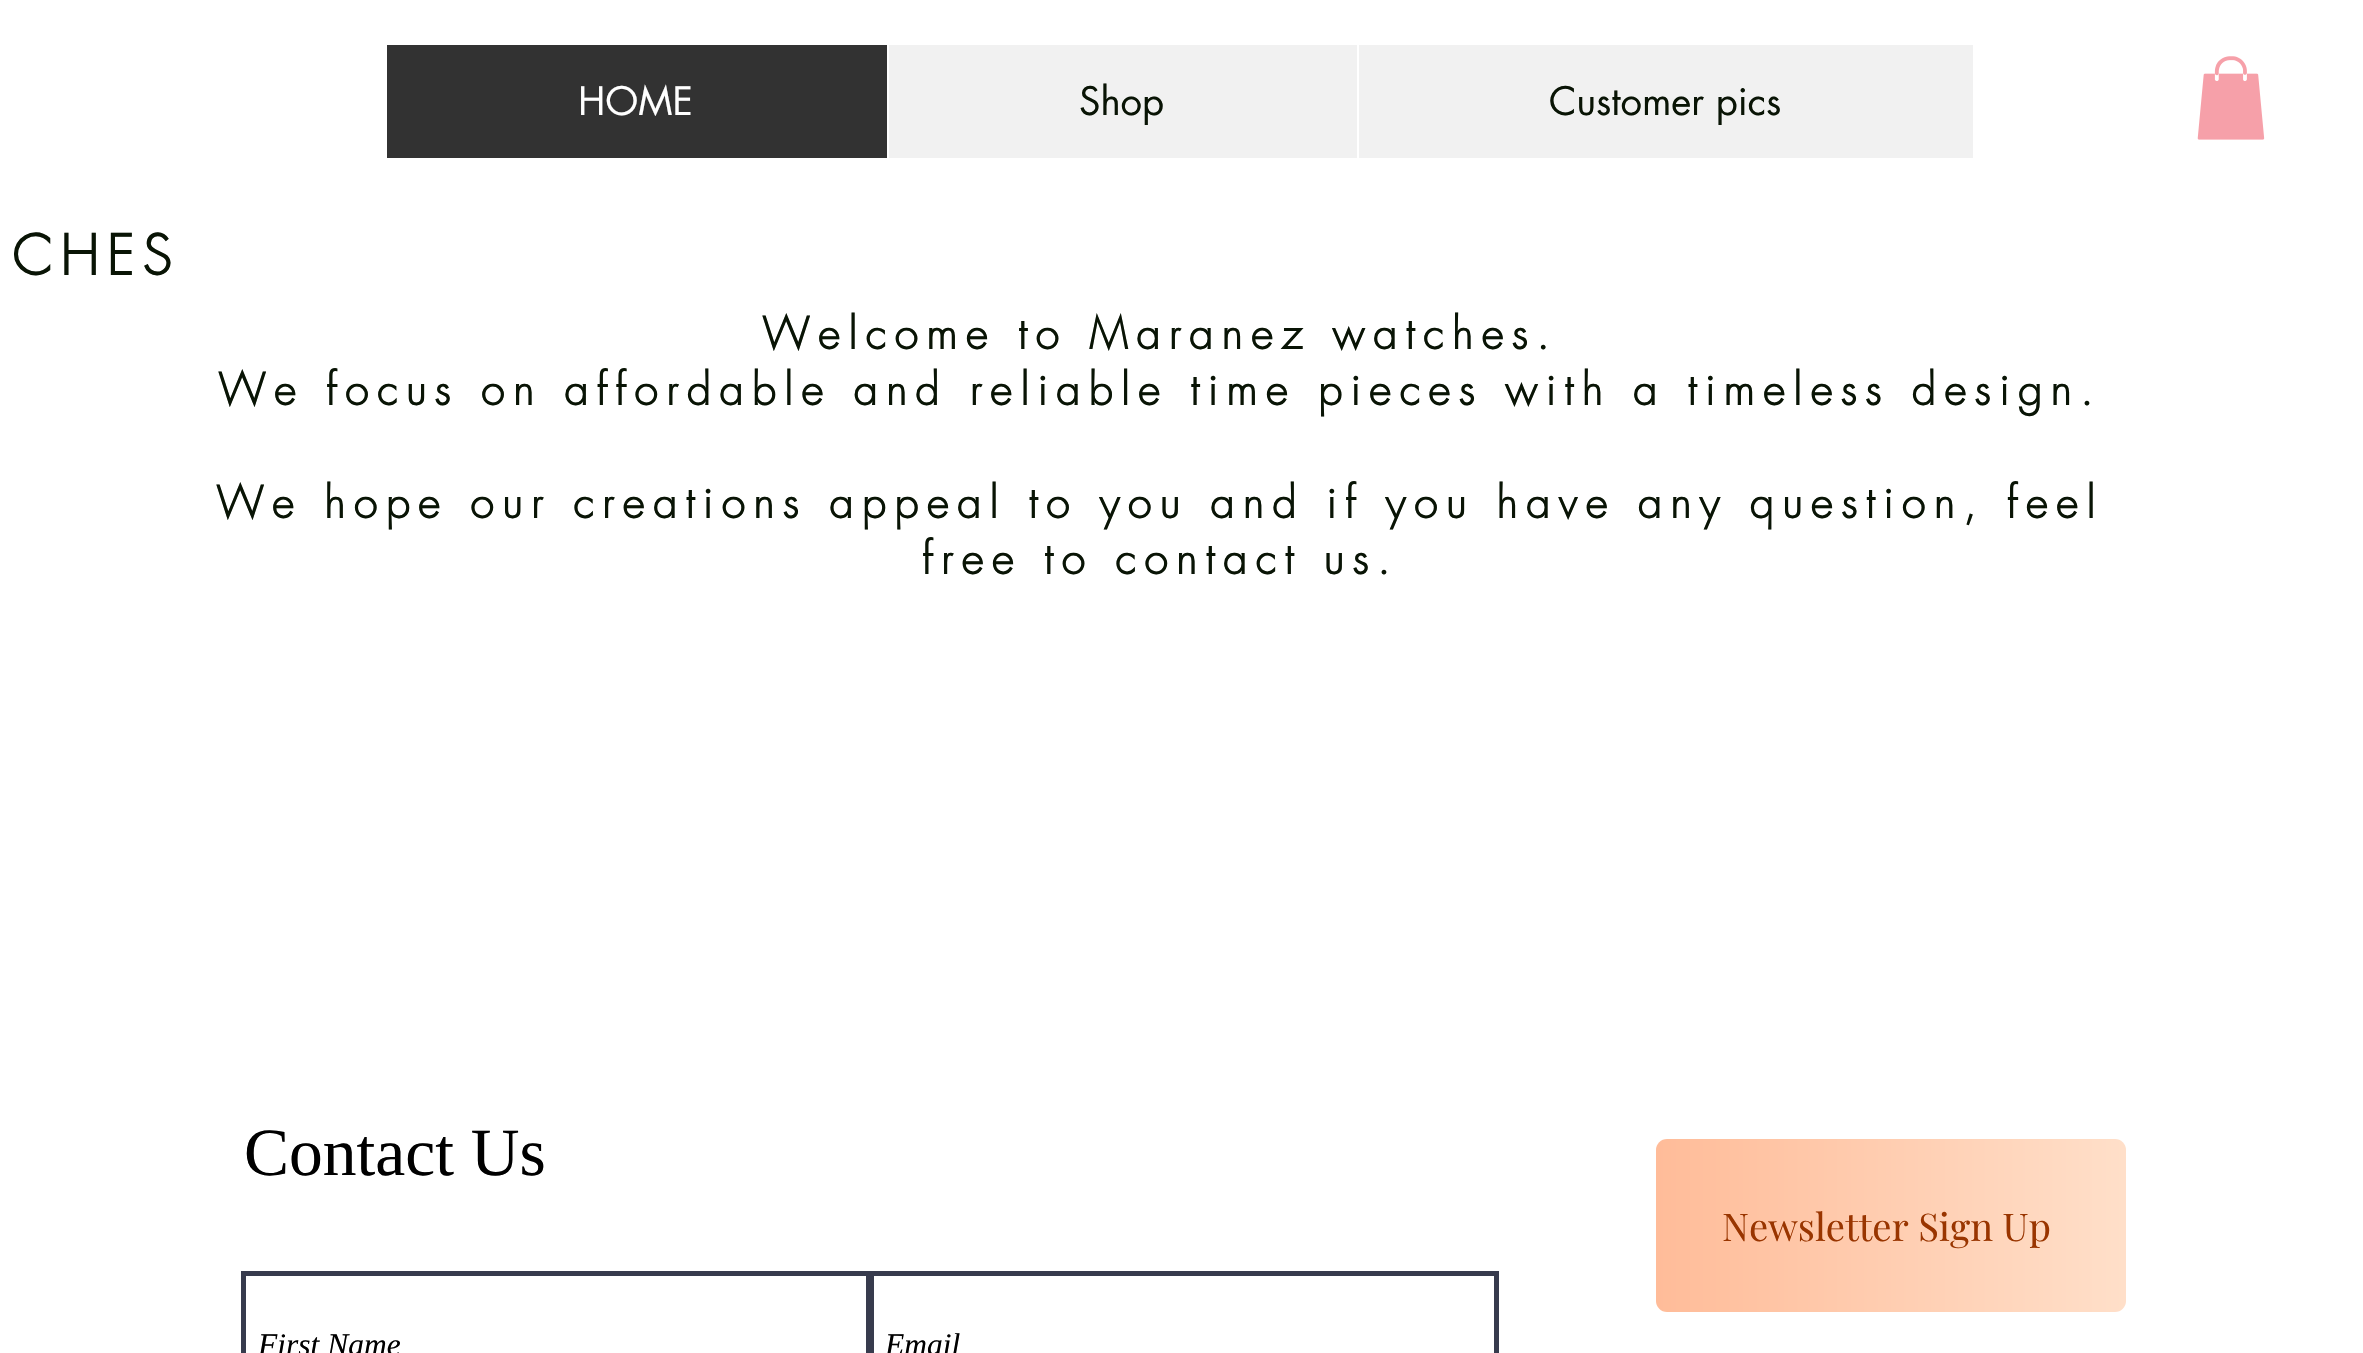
#include "include/core/SkBlurTypes.h"
#include "include/core/SkCanvas.h"
#include "include/core/SkData.h"
#include "include/core/SkFont.h"
#include "include/core/SkFontMgr.h"
#include "include/core/SkImage.h"
#include "include/core/SkMaskFilter.h"
#include "include/core/SkPaint.h"
#include "include/core/SkPathBuilder.h"
#include "include/core/SkTextBlob.h"
#include "include/effects/SkDashPathEffect.h"
#include "include/effects/SkGradientShader.h"
#include "include/utils/SkParsePath.h"

extern sk_sp<SkFontMgr> fontMgr;

static SkFont font(const char* family, int weight, float size, bool italic = false) {
    SkFontStyle style(weight, SkFontStyle::kNormal_Width,
        italic ? SkFontStyle::kItalic_Slant : SkFontStyle::kUpright_Slant);
    SkFont result(fontMgr->matchFamilyStyle(family, style), size);
    result.setSubpixel(true);
    return result;
}

static void drawLabel(SkCanvas* canvas, const char* s, float x, float y, const SkFont& font, SkColor color) {
    SkPaint ink(SkColor4f::FromColor(color));
    ink.setAntiAlias(true);
    canvas->drawString(s, x, y, font, ink);
}

static void drawTracked(SkCanvas* canvas, const char* s, float x, float y, const SkFont& font, const SkPaint& ink, float letter, float word) {
    std::vector<SkGlyphID> glyphs(font.countText(s, strlen(s), SkTextEncoding::kUTF8));
    std::vector<float> xs(glyphs.size());
    font.textToGlyphs(s, strlen(s), SkTextEncoding::kUTF8, glyphs);
    font.getXPos(glyphs, xs, x);
    float extra = 0;
    for (size_t i = 0; i < glyphs.size(); i++) {
        xs[i] += extra;
        extra += letter + word * (glyphs[i] == font.unicharToGlyph(' '));
    }
    canvas->drawTextBlob(SkTextBlob::MakeFromPosHGlyphs(glyphs, xs, y, font), 0, 0, ink);
}

static void fillRect(SkCanvas* canvas, float x, float y, float w, float h, SkColor color) {
    SkPaint ink(SkColor4f::FromColor(color));
    ink.setAntiAlias(true);
    canvas->drawRect(SkRect::MakeXYWH(x, y, w, h), ink);
}

static void drawPhoto(SkCanvas* canvas, const char* path, float x, float y, float w, float h) {
    auto image = SkImages::DeferredFromEncodedData(SkData::MakeFromFileName(path));
    canvas->drawImageRect(image, SkRect::MakeXYWH(x, y, w, h), SkSamplingOptions());
}

void draw(SkCanvas* canvas) {
    SkPaint paint;
    paint.setAntiAlias(true);
    canvas->clear(0xFFFFFFFF);
    fillRect(canvas, 889, 45, 1084, 113, 0xFFF1F1F1);
    fillRect(canvas, 387, 45, 500, 113, 0xFF323232);
    SkFont font1 = font("futura", 400, 38.25f);
    drawLabel(canvas, "HOME", 578, 115, font1, 0xFFFFFFFF);
    drawLabel(canvas, "Shop", 1079, 115, font1, 0xFF091405);
    fillRect(canvas, 1357, 45, 2, 113, 0xFFFFFFFF);
    drawLabel(canvas, "Customer pics", 1549, 115, font1, 0xFF091405);
    drawPhoto(canvas, "assets/img1.png", 2197, 56, 68, 84);
    SkFont font2 = font("futura", 700, 54);
    paint.setColor(0xFF091405);
    drawTracked(canvas, "CHES", 12, 275, font2, paint, 8, 0);
    SkFont font3 = font("futura", 700, 42.75f);
    drawTracked(canvas, "Welcome to Maranez watches.", 762, 349, font3, paint, 8.55f, 0);
    drawTracked(canvas, "We focus on affordable and reliable time pieces with a timeless design.", 218, 405, font3, paint, 8.55f, 0);
    drawTracked(canvas, "We hope our creations appeal to you and if you have any question, feel", 216, 518, font3, paint, 8.55f, 0);
    drawTracked(canvas, "free to contact us.", 922, 574, font3, paint, 8.55f, 0);
    SkFont font4 = font("Liberation Serif", 400, 67.5f);
    drawLabel(canvas, "Contact Us", 244, 1175, font4, 0xFF000000);
    paint.setStroke(true);
    paint.setStrokeWidth(5);
    paint.setColor(0xFF373B4D);
    canvas->drawRect(SkRect::MakeXYWH(243.5f, 1273.5f, 625, 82), paint);
    SkFont font5 = font("Liberation Serif", 400, 31.5f, true);
    drawLabel(canvas, "First Name", 258, 1355, font5, 0xFF000000);
    canvas->drawRect(SkRect::MakeXYWH(871.5f, 1273.5f, 625, 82), paint);
    drawLabel(canvas, "Email", 885, 1355, font5, 0xFF000000);
    paint.setStroke(false);
    {
        const SkColor colors[] = {0xFFFFBC99, 0xFFFFDFC9};
        const float stops[] = {0, 1};
        const SkPoint ends[] = {{1656, 1225}, {2126, 1225}};
        paint.setShader(SkGradientShader::MakeLinear(ends, colors, stops, 2, SkTileMode::kClamp));
        paint.setAlpha(255);
    }
    canvas->drawRoundRect(SkRect::MakeXYWH(1656, 1139, 470, 173), 11, 11, paint);
    SkFont font6 = font("Playfair Display", 400, 38.25f);
    drawLabel(canvas, "Newsletter Sign Up", 1722, 1241, font6, 0xFF993500);
}
